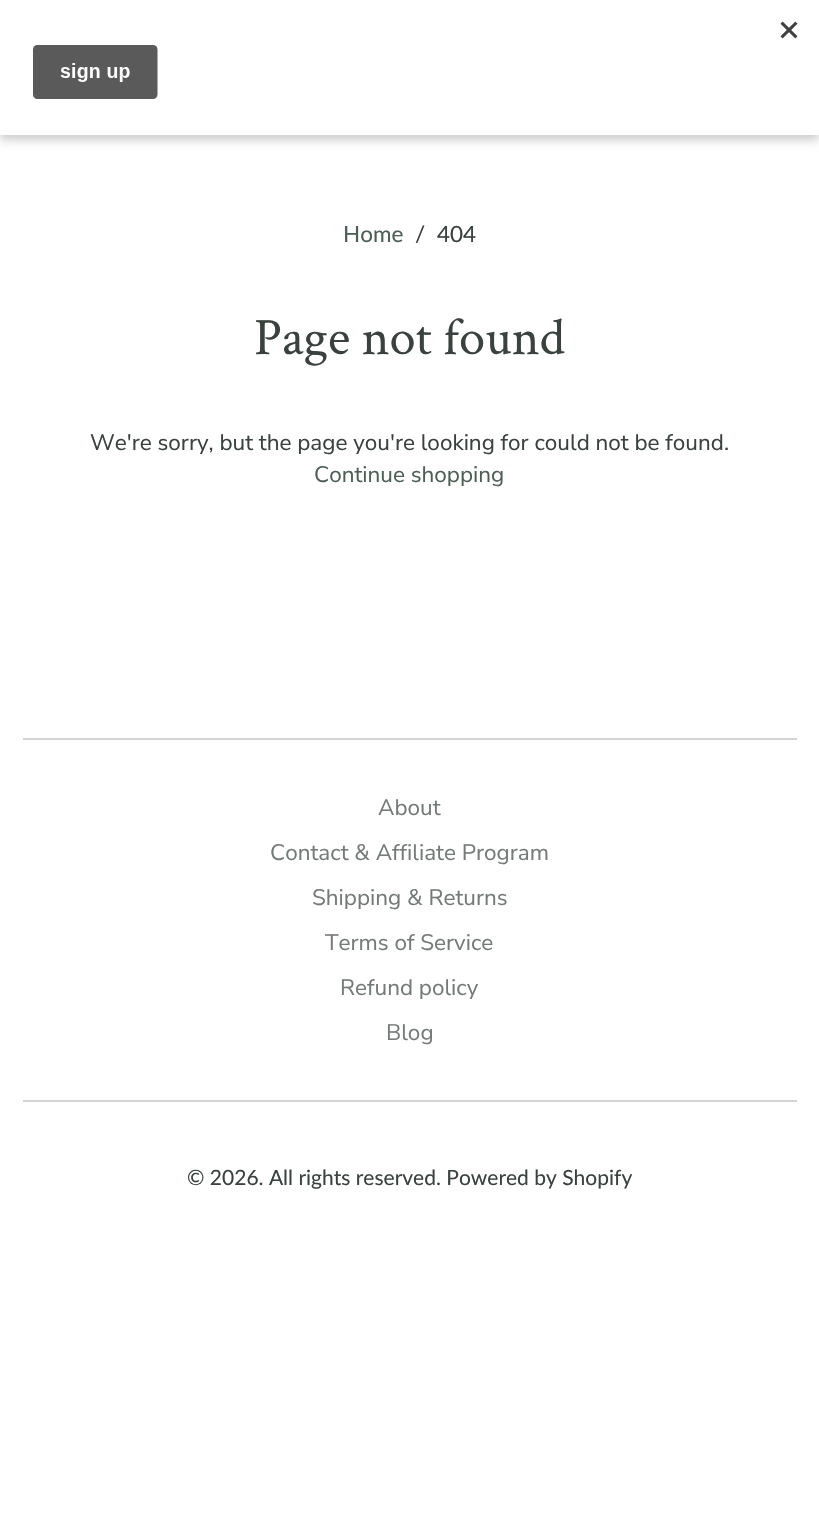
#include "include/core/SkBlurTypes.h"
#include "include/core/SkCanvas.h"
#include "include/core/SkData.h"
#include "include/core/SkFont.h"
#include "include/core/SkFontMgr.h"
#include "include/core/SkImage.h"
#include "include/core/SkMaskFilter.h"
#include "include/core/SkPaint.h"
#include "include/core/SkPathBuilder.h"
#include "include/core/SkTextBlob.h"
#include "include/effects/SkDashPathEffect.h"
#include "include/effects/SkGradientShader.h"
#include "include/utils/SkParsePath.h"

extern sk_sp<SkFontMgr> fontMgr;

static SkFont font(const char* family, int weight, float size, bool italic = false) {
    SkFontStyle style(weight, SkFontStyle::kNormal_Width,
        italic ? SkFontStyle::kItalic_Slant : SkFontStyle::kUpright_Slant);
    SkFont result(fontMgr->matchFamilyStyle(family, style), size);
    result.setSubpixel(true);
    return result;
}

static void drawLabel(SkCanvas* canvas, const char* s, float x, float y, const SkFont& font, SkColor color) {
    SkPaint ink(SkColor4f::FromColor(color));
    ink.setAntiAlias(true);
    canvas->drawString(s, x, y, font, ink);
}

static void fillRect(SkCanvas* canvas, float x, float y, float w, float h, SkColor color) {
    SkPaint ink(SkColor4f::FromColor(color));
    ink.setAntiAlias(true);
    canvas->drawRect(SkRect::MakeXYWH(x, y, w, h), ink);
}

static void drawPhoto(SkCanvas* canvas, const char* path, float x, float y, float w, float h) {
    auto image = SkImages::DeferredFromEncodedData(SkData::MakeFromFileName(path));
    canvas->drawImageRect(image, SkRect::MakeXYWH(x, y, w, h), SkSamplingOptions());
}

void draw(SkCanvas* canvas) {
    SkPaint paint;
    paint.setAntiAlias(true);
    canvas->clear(0xFFFFFFFF);
    paint.setColor(0x33000000);
    paint.setMaskFilter(SkMaskFilter::MakeBlur(kNormal_SkBlurStyle, 4.5f));
    canvas->drawRect(SkRect::MakeXYWH(0, 5, 819, 135), paint);
    paint.setMaskFilter(nullptr);
    fillRect(canvas, 0, 0, 819, 135, 0xFFFFFFFF);
    drawPhoto(canvas, "assets/img1.png", 32, 21, 766, 78);
    SkFont font1 = font("Lato", 400, 22.5f);
    drawLabel(canvas, "Home", 343, 242, font1, 0xFF4D6055);
    drawLabel(canvas, "/", 415, 242, font1, 0xFF39423D);
    drawLabel(canvas, "404", 437, 242, font1, 0xFF39423D);
    SkFont font2 = font("Crimson Text", 400, 52.5f);
    drawLabel(canvas, "Page not found", 254, 354, font2, 0xFF39423D);
    SkFont font3 = font("Nunito Sans", 400, 22.5f);
    drawLabel(canvas, "We're sorry, but the page you're looking for could not be found.", 90, 450, font3, 0xFF39423D);
    drawLabel(canvas, "Continue shopping", 314, 482, font3, 0xFF4D6055);
    fillRect(canvas, 23, 738, 774, 2, 0xFFD4D4D4);
    fillRect(canvas, 23, 1100, 774, 2, 0xFFD4D4D4);
    drawLabel(canvas, "About", 378, 815, font3, 0xFF747B77);
    drawLabel(canvas, "Contact & Affiliate Program", 270, 860, font3, 0xFF747B77);
    drawLabel(canvas, "Shipping & Returns", 312, 905, font3, 0xFF747B77);
    drawLabel(canvas, "Terms of Service", 325, 950, font3, 0xFF747B77);
    drawLabel(canvas, "Refund policy", 340, 995, font3, 0xFF747B77);
    drawLabel(canvas, "Blog", 386, 1040, font3, 0xFF747B77);
    SkFont font4 = font("Lato", 400, 21);
    drawLabel(canvas, "© 2026. All rights reserved. Powered by Shopify", 187, 1185, font4, 0xFF39423D);
}
